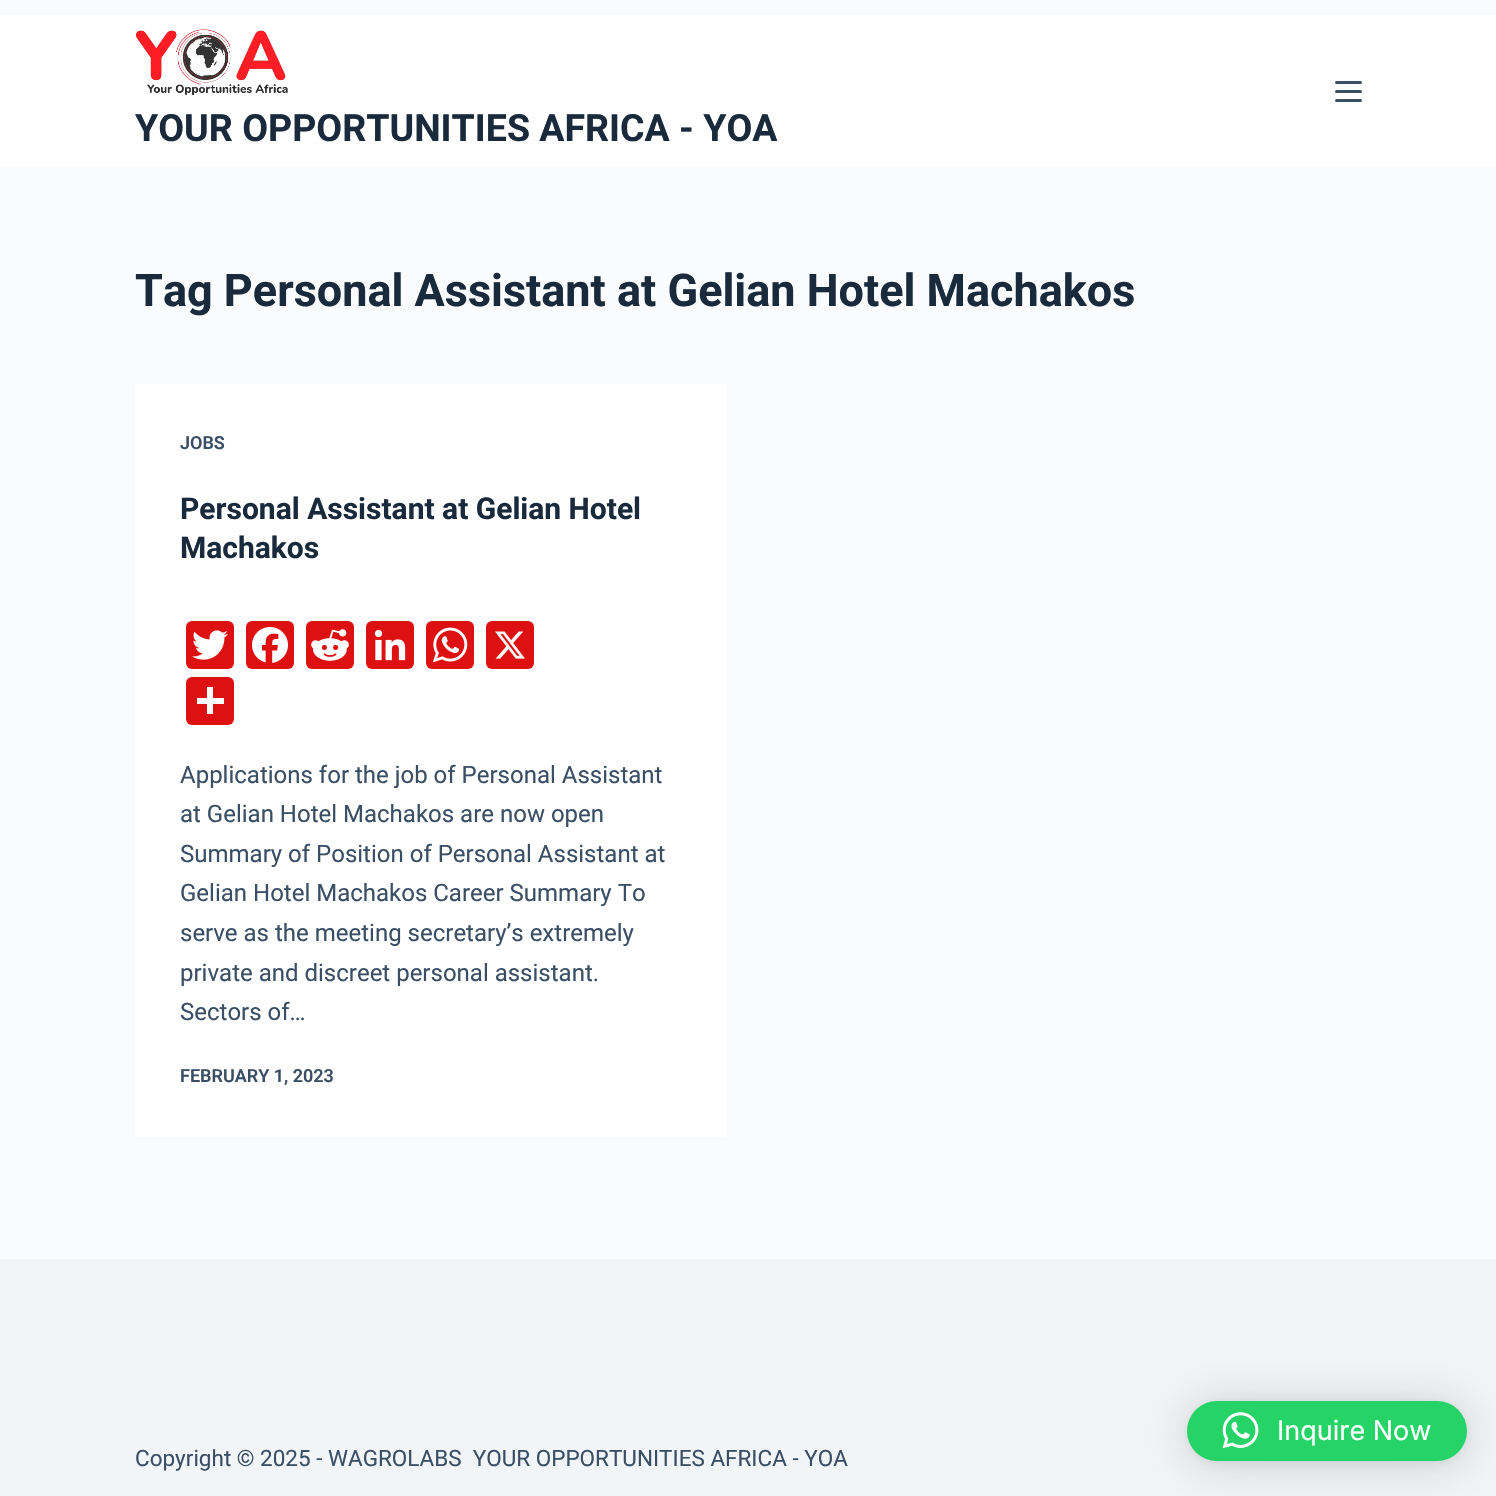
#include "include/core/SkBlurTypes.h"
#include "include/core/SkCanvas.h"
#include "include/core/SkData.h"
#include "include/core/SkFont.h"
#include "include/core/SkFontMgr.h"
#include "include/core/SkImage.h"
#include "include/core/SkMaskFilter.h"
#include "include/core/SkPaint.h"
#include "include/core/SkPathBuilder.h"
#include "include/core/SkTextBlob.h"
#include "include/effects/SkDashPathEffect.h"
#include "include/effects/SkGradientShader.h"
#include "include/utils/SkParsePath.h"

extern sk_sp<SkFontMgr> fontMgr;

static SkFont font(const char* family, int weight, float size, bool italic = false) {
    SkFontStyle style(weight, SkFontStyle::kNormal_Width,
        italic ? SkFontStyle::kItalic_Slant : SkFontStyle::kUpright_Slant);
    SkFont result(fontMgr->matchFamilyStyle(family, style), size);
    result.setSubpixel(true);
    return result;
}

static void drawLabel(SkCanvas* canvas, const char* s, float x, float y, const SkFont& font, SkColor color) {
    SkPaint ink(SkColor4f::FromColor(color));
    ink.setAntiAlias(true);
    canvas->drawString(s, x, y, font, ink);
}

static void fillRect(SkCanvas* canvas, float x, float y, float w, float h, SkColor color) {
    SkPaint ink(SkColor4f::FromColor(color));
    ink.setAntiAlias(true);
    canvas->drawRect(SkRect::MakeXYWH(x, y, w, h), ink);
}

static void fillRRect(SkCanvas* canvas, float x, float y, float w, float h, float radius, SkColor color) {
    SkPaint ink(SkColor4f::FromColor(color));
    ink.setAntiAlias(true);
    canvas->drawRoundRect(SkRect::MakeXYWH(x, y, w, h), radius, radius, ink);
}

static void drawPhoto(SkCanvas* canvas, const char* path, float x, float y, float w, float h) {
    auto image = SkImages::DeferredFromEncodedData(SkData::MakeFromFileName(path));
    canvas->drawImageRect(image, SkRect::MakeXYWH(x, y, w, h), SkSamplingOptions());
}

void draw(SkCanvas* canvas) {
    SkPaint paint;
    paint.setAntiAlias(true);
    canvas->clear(0xFFFAFBFC);
    fillRect(canvas, 0, 15, 1496, 152, 0xFFFFFFFF);
    fillRRect(canvas, 1335, 81, 27, 3, 1.5f, 0xFF3A4F66);
    fillRRect(canvas, 1335, 90, 27, 3, 1.5f, 0xFF3A4F66);
    fillRRect(canvas, 1335, 99, 27, 3, 1.5f, 0xFF3A4F66);
    drawPhoto(canvas, "assets/img1.png", 135, 29, 153, 67);
    SkFont font1 = font("Roboto", 700, 37.5f);
    drawLabel(canvas, "YOUR OPPORTUNITIES AFRICA - YOA", 135, 141, font1, 0xFF192A3D);
    SkFont font2 = font("Roboto", 700, 45);
    drawLabel(canvas, "Tag Personal Assistant at Gelian Hotel Machakos", 135, 306, font2, 0xFF192A3D);
    fillRect(canvas, 135, 384, 591, 753, 0xFFFFFFFF);
    SkFont font3 = font("Roboto", 600, 18);
    drawLabel(canvas, "JOBS", 180, 449, font3, 0xFF3A4F66);
    SkFont font4 = font("Roboto", 700, 30);
    drawLabel(canvas, "Personal Assistant at Gelian Hotel", 180, 519, font4, 0xFF192A3D);
    drawLabel(canvas, "Machakos", 180, 558, font4, 0xFF192A3D);
    fillRRect(canvas, 186, 621, 48, 48, 6, 0xFFDD1111);
    drawPhoto(canvas, "assets/img2.png", 192, 630, 36, 30);
    fillRRect(canvas, 246, 621, 48, 48, 6, 0xFFDD1111);
    drawPhoto(canvas, "assets/img3.png", 252, 627, 36, 36);
    fillRRect(canvas, 306, 621, 48, 48, 6, 0xFFDD1111);
    drawPhoto(canvas, "assets/img4.png", 311, 629, 38, 32);
    fillRRect(canvas, 366, 621, 48, 48, 6, 0xFFDD1111);
    drawPhoto(canvas, "assets/img5.png", 374, 629, 32, 32);
    fillRRect(canvas, 426, 621, 48, 48, 6, 0xFFDD1111);
    drawPhoto(canvas, "assets/img6.png", 432, 627, 36, 36);
    fillRRect(canvas, 486, 621, 48, 48, 6, 0xFFDD1111);
    drawPhoto(canvas, "assets/img7.png", 495, 631, 30, 28);
    fillRRect(canvas, 186, 677, 48, 48, 6, 0xFFDD1111);
    fillRect(canvas, 207, 687, 6, 27, 0xFFFFFFFF);
    fillRect(canvas, 197, 698, 27, 6, 0xFFFFFFFF);
    SkFont font5 = font("Roboto", 400, 24);
    drawLabel(canvas, "Applications for the job of Personal Assistant", 180, 783, font5, 0xFF3A4F66);
    drawLabel(canvas, "at Gelian Hotel Machakos are now open", 180, 822, font5, 0xFF3A4F66);
    drawLabel(canvas, "Summary of Position of Personal Assistant at", 180, 862, font5, 0xFF3A4F66);
    drawLabel(canvas, "Gelian Hotel Machakos Career Summary To", 180, 901, font5, 0xFF3A4F66);
    drawLabel(canvas, "serve as the meeting secretary’s extremely", 180, 941, font5, 0xFF3A4F66);
    drawLabel(canvas, "private and discreet personal assistant.", 180, 981, font5, 0xFF3A4F66);
    drawLabel(canvas, "Sectors of…", 180, 1020, font5, 0xFF3A4F66);
    drawLabel(canvas, "FEBRUARY 1, 2023", 180, 1082, font3, 0xFF3A4F66);
    fillRect(canvas, 0, 1259, 1496, 237, 0xFFF2F5F7);
    SkFont font6 = font("Roboto", 400, 22.5f);
    drawLabel(canvas, "Copyright © 2025 - WAGROLABS  YOUR OPPORTUNITIES AFRICA - YOA", 135, 1466, font6, 0xFF3A4F66);
    paint.setColor(0x29000000);
    paint.setMaskFilter(SkMaskFilter::MakeBlur(kNormal_SkBlurStyle, 24));
    canvas->drawRoundRect(SkRect::MakeXYWH(1187, 1404, 280, 60), 30, 30, paint);
    paint.setMaskFilter(nullptr);
    paint.setColor(0x0F000000);
    paint.setMaskFilter(SkMaskFilter::MakeBlur(kNormal_SkBlurStyle, 4.5f));
    canvas->drawRoundRect(SkRect::MakeXYWH(1187, 1403, 280, 60), 30, 30, paint);
    paint.setMaskFilter(nullptr);
    fillRRect(canvas, 1187, 1401, 280, 60, 30, 0xFF25D366);
    drawPhoto(canvas, "assets/img8.png", 1222, 1412, 37, 37);
    SkFont font7 = font("Inter", 400, 27);
    drawLabel(canvas, "Inquire Now", 1277, 1440, font7, 0xFFFFFFFF);
}
